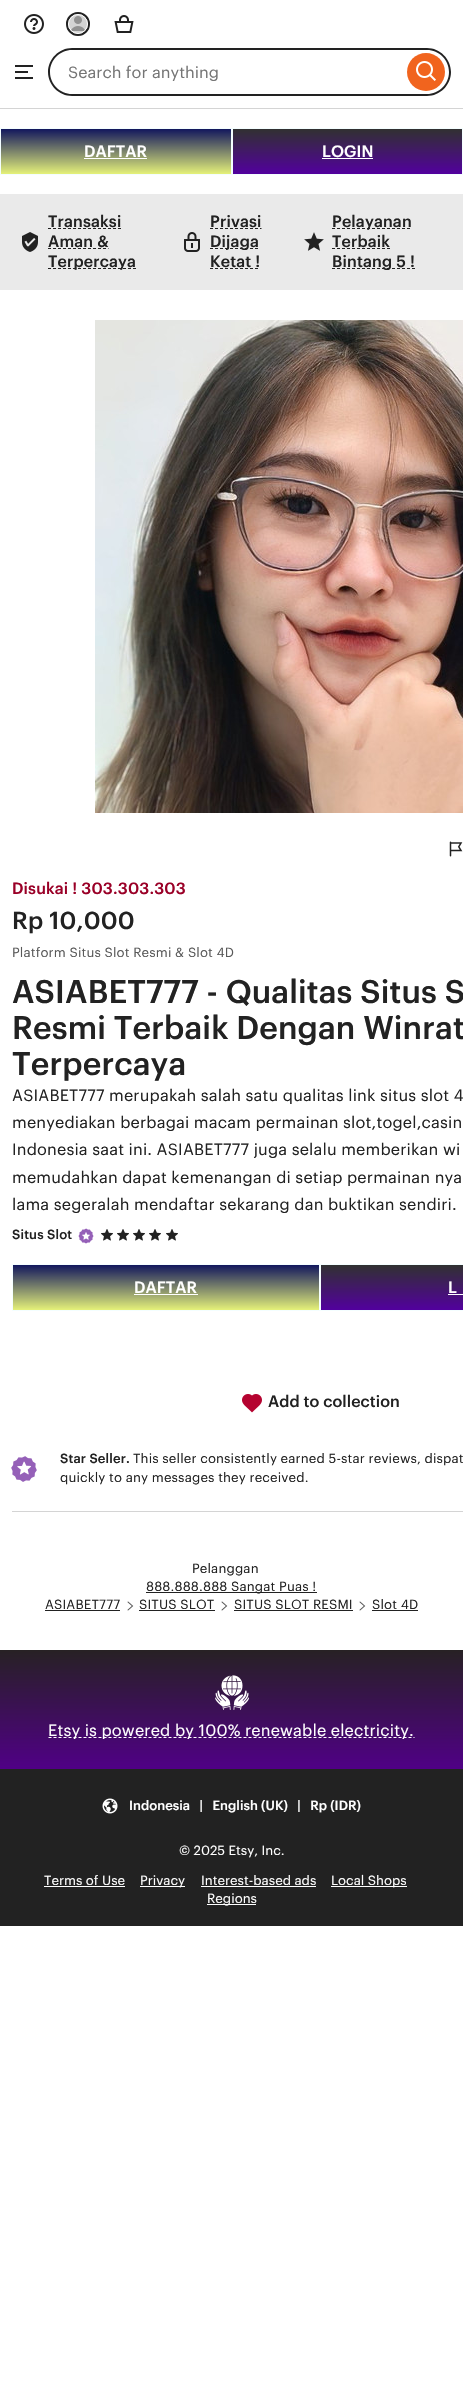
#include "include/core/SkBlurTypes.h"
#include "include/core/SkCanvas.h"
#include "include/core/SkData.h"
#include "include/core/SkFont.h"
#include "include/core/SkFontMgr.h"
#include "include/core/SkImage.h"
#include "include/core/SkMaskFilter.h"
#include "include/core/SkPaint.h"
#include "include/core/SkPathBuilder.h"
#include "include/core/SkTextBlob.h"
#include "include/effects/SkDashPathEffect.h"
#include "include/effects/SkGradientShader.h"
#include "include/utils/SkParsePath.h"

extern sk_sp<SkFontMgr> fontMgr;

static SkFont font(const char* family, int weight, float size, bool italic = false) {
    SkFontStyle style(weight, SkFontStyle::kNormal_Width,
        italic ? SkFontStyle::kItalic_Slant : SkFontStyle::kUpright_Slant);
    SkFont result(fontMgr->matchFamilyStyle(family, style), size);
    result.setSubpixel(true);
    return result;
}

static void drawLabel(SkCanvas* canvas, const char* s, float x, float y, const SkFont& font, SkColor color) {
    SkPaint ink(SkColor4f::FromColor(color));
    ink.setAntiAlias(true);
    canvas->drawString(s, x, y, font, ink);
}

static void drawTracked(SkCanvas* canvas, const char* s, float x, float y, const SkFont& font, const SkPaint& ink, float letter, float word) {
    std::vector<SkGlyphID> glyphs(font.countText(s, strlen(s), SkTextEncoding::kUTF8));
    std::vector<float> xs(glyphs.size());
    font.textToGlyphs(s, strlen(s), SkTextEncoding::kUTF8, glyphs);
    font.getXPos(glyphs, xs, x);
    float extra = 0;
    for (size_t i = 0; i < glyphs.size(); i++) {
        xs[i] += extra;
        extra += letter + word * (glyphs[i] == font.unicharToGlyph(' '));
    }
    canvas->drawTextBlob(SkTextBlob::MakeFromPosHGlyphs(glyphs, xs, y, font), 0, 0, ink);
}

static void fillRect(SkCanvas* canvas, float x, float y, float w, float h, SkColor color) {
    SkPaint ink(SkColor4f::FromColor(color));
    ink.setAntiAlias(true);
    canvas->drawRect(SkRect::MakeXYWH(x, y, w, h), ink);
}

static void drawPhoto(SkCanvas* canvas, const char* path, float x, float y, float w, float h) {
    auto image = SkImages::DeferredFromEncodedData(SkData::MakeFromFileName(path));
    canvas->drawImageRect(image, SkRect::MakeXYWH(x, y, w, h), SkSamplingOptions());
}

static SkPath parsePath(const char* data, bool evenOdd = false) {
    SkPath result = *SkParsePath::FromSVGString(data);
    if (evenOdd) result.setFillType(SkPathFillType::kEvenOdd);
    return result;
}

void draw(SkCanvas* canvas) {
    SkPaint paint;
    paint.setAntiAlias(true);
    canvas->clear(0xFFFFFFFF);
    fillRect(canvas, 0, 108, 463, 1, 0xFFD4D4D4);
    drawPhoto(canvas, "assets/img1.png", 24, 14, 20, 20);
    drawPhoto(canvas, "assets/img2.png", 66, 12, 24, 24);
    paint.setStroke(true);
    paint.setStrokeWidth(2);
    paint.setColor(0xFF222222);
    canvas->drawCircle(78, 24, 11, paint);
    paint.setStrokeWidth(1);
    paint.setColor(0xFFFFFFFF);
    canvas->drawCircle(78, 24, 9.5f, paint);
    drawPhoto(canvas, "assets/img3.png", 114, 15, 20, 18);
    drawPhoto(canvas, "assets/img4.png", 15, 65, 18, 14);
    paint.setStroke(false);
    paint.setColor(0xFF222222);
    canvas->drawPath(parsePath("M72 48H402V96H72C59 96 48 85 48 72C48 59 59 48 72 48ZM72 50H402V94H72C60 94 50 84 50 72C50 60 60 50 72 50Z", true), paint);
    SkFont font1 = font("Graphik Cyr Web", 400, 16);
    drawLabel(canvas, "Search for anything", 68, 78, font1, 0xFF757575);
    canvas->drawPath(parsePath("M402 48H427C440 48 451 59 451 72C451 85 440 96 427 96H402ZM402 50H427C439 50 449 60 449 72C449 84 439 94 427 94H402Z", true), paint);
    paint.setColor(0xFFF1641E);
    canvas->drawCircle(426, 72, 19, paint);
    drawPhoto(canvas, "assets/img5.png", 416, 61, 20, 20);
    {
        const SkColor colors[] = {0xFF12175D, 0xFFE5F179};
        const float stops[] = {0, 1};
        const SkPoint ends[] = {{116, 129}, {116, 174}};
        paint.setShader(SkGradientShader::MakeLinear(ends, colors, stops, 2, SkTileMode::kClamp));
        paint.setAlpha(255);
    }
    canvas->drawRect(SkRect::MakeXYWH(1, 129, 230, 45), paint);
    paint.setStroke(true);
    paint.setShader(nullptr);
    paint.setColor(0xFFF4FEFF);
    canvas->drawRect(SkRect::MakeXYWH(0.5f, 128.5f, 231, 46), paint);
    SkFont font2 = font("Graphik Cyr Web", 500, 16);
    drawLabel(canvas, "DAFTAR", 84, 157, font2, 0xFFFFFFFF);
    fillRect(canvas, 84, 158, 63, 1, 0xFFFFFFFF);
    paint.setStroke(false);
    {
        const SkColor colors[] = {0xFF313131, 0xFF52009E};
        const float stops[] = {0, 1};
        const SkPoint ends[] = {{348, 129}, {348, 174}};
        paint.setShader(SkGradientShader::MakeLinear(ends, colors, stops, 2, SkTileMode::kClamp));
        paint.setAlpha(255);
    }
    canvas->drawRect(SkRect::MakeXYWH(233, 129, 229, 45), paint);
    paint.setStroke(true);
    paint.setShader(nullptr);
    paint.setColor(0xFFF4FEFF);
    canvas->drawRect(SkRect::MakeXYWH(232.5f, 128.5f, 230, 46), paint);
    drawLabel(canvas, "LOGIN", 322, 157, font2, 0xFFFFFFFF);
    fillRect(canvas, 322, 158, 51, 1, 0xFFFFFFFF);
    fillRect(canvas, 0, 194, 463, 96, 0xFFEAEAEA);
    drawPhoto(canvas, "assets/img6.png", 22, 232, 16, 20);
    paint.setStroke(false);
    paint.setColor(0xFF222222);
    drawTracked(canvas, "Transaksi", 48, 227, font2, paint, 0.1f, 0);
    paint.setStroke(true);
    paint.setPathEffect(SkDashPathEffect::Make({{3, 2}}, 0));
    canvas->drawPath(parsePath("M48 228.5H121"), paint);
    paint.setPathEffect(nullptr);
    paint.setStroke(false);
    drawTracked(canvas, "Aman &", 48, 247, font2, paint, 0.1f, 0);
    paint.setStroke(true);
    paint.setPathEffect(SkDashPathEffect::Make({{3, 2}}, 0));
    canvas->drawPath(parsePath("M48 248.5H108.5"), paint);
    paint.setPathEffect(nullptr);
    paint.setPathEffect(SkDashPathEffect::Make({{3, 2}}, 0));
    canvas->drawPath(parsePath("M48 268.5H136"), paint);
    paint.setPathEffect(nullptr);
    paint.setStroke(false);
    drawTracked(canvas, "Terpercaya", 48, 267, font2, paint, 0.1f, 0);
    drawPhoto(canvas, "assets/img7.png", 184, 232, 16, 20);
    drawTracked(canvas, "Privasi", 210, 227, font2, paint, 0.1f, 0);
    paint.setStroke(true);
    paint.setPathEffect(SkDashPathEffect::Make({{3, 2}}, 0));
    canvas->drawPath(parsePath("M210 228.5H261.5"), paint);
    paint.setPathEffect(nullptr);
    paint.setPathEffect(SkDashPathEffect::Make({{3, 2}}, 0));
    canvas->drawPath(parsePath("M210 248.5H258.5"), paint);
    paint.setPathEffect(nullptr);
    paint.setStroke(false);
    drawTracked(canvas, "Dijaga", 210, 247, font2, paint, 0.1f, 0);
    drawTracked(canvas, "Ketat !", 210, 267, font2, paint, 0.1f, 0);
    paint.setStroke(true);
    paint.setPathEffect(SkDashPathEffect::Make({{3, 2}}, 0));
    canvas->drawPath(parsePath("M210 268.5H260"), paint);
    paint.setPathEffect(nullptr);
    drawPhoto(canvas, "assets/img8.png", 304, 232, 20, 19);
    paint.setPathEffect(SkDashPathEffect::Make({{3, 2}}, 0));
    canvas->drawPath(parsePath("M332 228.5H411.5"), paint);
    paint.setPathEffect(nullptr);
    paint.setStroke(false);
    drawTracked(canvas, "Pelayanan", 332, 227, font2, paint, 0.1f, 0);
    drawTracked(canvas, "Terbaik", 332, 247, font2, paint, 0.1f, 0);
    paint.setStroke(true);
    paint.setPathEffect(SkDashPathEffect::Make({{3, 2}}, 0));
    canvas->drawPath(parsePath("M332 248.5H390"), paint);
    paint.setPathEffect(nullptr);
    paint.setPathEffect(SkDashPathEffect::Make({{3, 2}}, 0));
    canvas->drawPath(parsePath("M332 268.5H415"), paint);
    paint.setPathEffect(nullptr);
    paint.setStroke(false);
    drawTracked(canvas, "Bintang 5 !", 332, 267, font2, paint, 0.1f, 0);
    drawPhoto(canvas, "assets/img9.png", 95, 320, 368, 493);
    drawPhoto(canvas, "assets/img10.png", 449, 841, 14, 16);
    paint.setColor(0xFF9A0027);
    drawTracked(canvas, "Disukai ! 303.303.303", 12, 894, font2, paint, 0.1f, 0);
    SkFont font3 = font("Graphik Cyr Web", 500, 24);
    paint.setColor(0xFF222222);
    drawTracked(canvas, "Rp 10,000", 12, 929, font3, paint, 0.1f, 0);
    SkFont font4 = font("Graphik Cyr Web", 400, 13);
    paint.setColor(0xFF595959);
    drawTracked(canvas, "Platform Situs Slot Resmi & Slot 4D", 12, 957, font4, paint, 0.13f, 0);
    SkFont font5 = font("Graphik Cyr Web", 500, 32);
    drawLabel(canvas, "ASIABET777 - Qualitas Situs S", 12, 1003, font5, 0xFF222222);
    drawLabel(canvas, "Resmi Terbaik Dengan Winrat", 12, 1039, font5, 0xFF222222);
    drawLabel(canvas, "Terpercaya", 12, 1075, font5, 0xFF222222);
    paint.setColor(0xFF222222);
    drawTracked(canvas, "ASIABET777 merupakah salah satu qualitas link situs slot 4", 12, 1101, font1, paint, 0.15f, 0);
    drawTracked(canvas, "menyediakan berbagai macam permainan slot,togel,casin", 12, 1128, font1, paint, 0.15f, 0);
    drawTracked(canvas, "Indonesia saat ini. ASIABET777 juga selalu memberikan wi", 12, 1155, font1, paint, 0.15f, 0);
    drawTracked(canvas, "memudahkan dapat kemenangan di setiap permainan nya", 12, 1183, font1, paint, 0.15f, 0);
    drawTracked(canvas, "lama segeralah mendaftar sekarang dan buktikan sendiri.", 12, 1210, font1, paint, 0.15f, 0);
    SkFont font6 = font("Graphik Cyr Web", 500, 13);
    drawTracked(canvas, "Situs Slot", 12, 1239, font6, paint, 0.13f, 0);
    drawPhoto(canvas, "assets/img11.png", 78, 1228, 16, 16);
    drawPhoto(canvas, "assets/img12.png", 101, 1229, 12, 12);
    drawPhoto(canvas, "assets/img12.png", 117, 1229, 12, 12);
    drawPhoto(canvas, "assets/img12.png", 133, 1229, 12, 12);
    drawPhoto(canvas, "assets/img12.png", 149, 1229, 12, 12);
    drawPhoto(canvas, "assets/img12.png", 166, 1229, 12, 12);
    {
        const SkColor colors[] = {0xFF12175D, 0xFFE5F179};
        const float stops[] = {0, 1};
        const SkPoint ends[] = {{166, 1265}, {166, 1310}};
        paint.setShader(SkGradientShader::MakeLinear(ends, colors, stops, 2, SkTileMode::kClamp));
        paint.setAlpha(255);
    }
    canvas->drawRect(SkRect::MakeXYWH(13, 1265, 306, 45), paint);
    paint.setStroke(true);
    paint.setShader(nullptr);
    paint.setColor(0xFFF4FEFF);
    canvas->drawRect(SkRect::MakeXYWH(12.5f, 1264.5f, 307, 46), paint);
    drawLabel(canvas, "DAFTAR", 134, 1293, font2, 0xFFFFFFFF);
    fillRect(canvas, 134, 1294, 64, 1, 0xFFFFFFFF);
    paint.setStroke(false);
    {
        const SkColor colors[] = {0xFF313131, 0xFF52009E};
        const float stops[] = {0, 1};
        const SkPoint ends[] = {{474, 1265}, {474, 1310}};
        paint.setShader(SkGradientShader::MakeLinear(ends, colors, stops, 2, SkTileMode::kClamp));
        paint.setAlpha(255);
    }
    canvas->drawRect(SkRect::MakeXYWH(321, 1265, 142, 45), paint);
    paint.setStroke(true);
    paint.setShader(nullptr);
    paint.setColor(0xFFF4FEFF);
    canvas->drawRect(SkRect::MakeXYWH(320.5f, 1264.5f, 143, 46), paint);
    drawLabel(canvas, "L", 448, 1293, font2, 0xFFFFFFFF);
    fillRect(canvas, 448, 1294, 15, 1, 0xFFFFFFFF);
    drawPhoto(canvas, "assets/img13.png", 242, 1394, 20, 19);
    drawLabel(canvas, "Add to collection", 268, 1407, font2, 0xFF222222);
    drawPhoto(canvas, "assets/img14.png", 11, 1456, 26, 26);
    paint.setStroke(false);
    paint.setColor(0xFF222222);
    drawTracked(canvas, "Star Seller.", 60, 1463, font6, paint, 0.13f, 0);
    drawTracked(canvas, "This seller consistently earned 5-star reviews, dispat", 133, 1463, font4, paint, 0.13f, 0);
    drawTracked(canvas, "quickly to any messages they received.", 60, 1482, font4, paint, 0.13f, 0);
    fillRect(canvas, 12, 1511, 451, 1, 0xFFD4D4D4);
    drawTracked(canvas, "Pelanggan", 192, 1573, font4, paint, 0.13f, 0);
    fillRect(canvas, 146, 1592, 171, 1, 0xFF222222);
    drawTracked(canvas, "888.888.888 Sangat Puas !", 146, 1591, font4, paint, 0.13f, 0);
    drawTracked(canvas, "ASIABET777", 45, 1609, font4, paint, 0.13f, 0);
    fillRect(canvas, 45, 1610, 75, 1, 0xFF222222);
    drawPhoto(canvas, "assets/img15.png", 127, 1601, 7, 10);
    drawTracked(canvas, "SITUS SLOT", 139, 1609, font4, paint, 0.13f, 0);
    fillRect(canvas, 139, 1610, 76, 1, 0xFF222222);
    drawPhoto(canvas, "assets/img15.png", 221, 1601, 7, 10);
    drawTracked(canvas, "SITUS SLOT RESMI", 234, 1609, font4, paint, 0.13f, 0);
    fillRect(canvas, 234, 1610, 119, 1, 0xFF222222);
    drawPhoto(canvas, "assets/img15.png", 359, 1601, 7, 10);
    drawTracked(canvas, "Slot 4D", 372, 1609, font4, paint, 0.13f, 0);
    fillRect(canvas, 372, 1610, 46, 1, 0xFF222222);
    {
        const SkColor colors[] = {0xFF272124, 0xFF500086};
        const float stops[] = {0, 1};
        const SkPoint ends[] = {{232, 1650}, {232, 1769}};
        paint.setShader(SkGradientShader::MakeLinear(ends, colors, stops, 2, SkTileMode::kClamp));
        paint.setAlpha(255);
    }
    canvas->drawRect(SkRect::MakeXYWH(0, 1650, 463, 119), paint);
    drawPhoto(canvas, "assets/img16.png", 215, 1675, 34, 35);
    paint.setStroke(true);
    paint.setShader(nullptr);
    paint.setColor(0xFFFFFFFF);
    paint.setPathEffect(SkDashPathEffect::Make({{3, 2}}, 0));
    canvas->drawPath(parsePath("M48.5 1737.5H414.5"), paint);
    paint.setPathEffect(nullptr);
    paint.setStroke(false);
    drawTracked(canvas, "Etsy is powered by 100% renewable electricity.", 48, 1736, font1, paint, 0.15f, 0);
    fillRect(canvas, 0, 1769, 463, 157, 0xFF222222);
    drawPhoto(canvas, "assets/img17.png", 102, 1798, 16, 16);
    drawLabel(canvas, "Indonesia   |   English (UK)   |   Rp (IDR)", 129, 1810, font6, 0xFFFFFFFF);
    drawLabel(canvas, "© 2025 Etsy, Inc.", 179, 1855, font4, 0xFFFFFFFF);
    drawLabel(canvas, "Terms of Use", 44, 1885, font4, 0xFFFFFFFF);
    fillRect(canvas, 44, 1886, 81, 1, 0xFFFFFFFF);
    fillRect(canvas, 140, 1886, 45, 1, 0xFFFFFFFF);
    drawLabel(canvas, "Privacy", 140, 1885, font4, 0xFFFFFFFF);
    drawLabel(canvas, "Interest-based ads", 201, 1885, font4, 0xFFFFFFFF);
    fillRect(canvas, 201, 1886, 115, 1, 0xFFFFFFFF);
    fillRect(canvas, 331, 1886, 76, 1, 0xFFFFFFFF);
    drawLabel(canvas, "Local Shops", 331, 1885, font4, 0xFFFFFFFF);
    fillRect(canvas, 207, 1904, 49, 1, 0xFFFFFFFF);
    drawLabel(canvas, "Regions", 207, 1903, font4, 0xFFFFFFFF);
}
